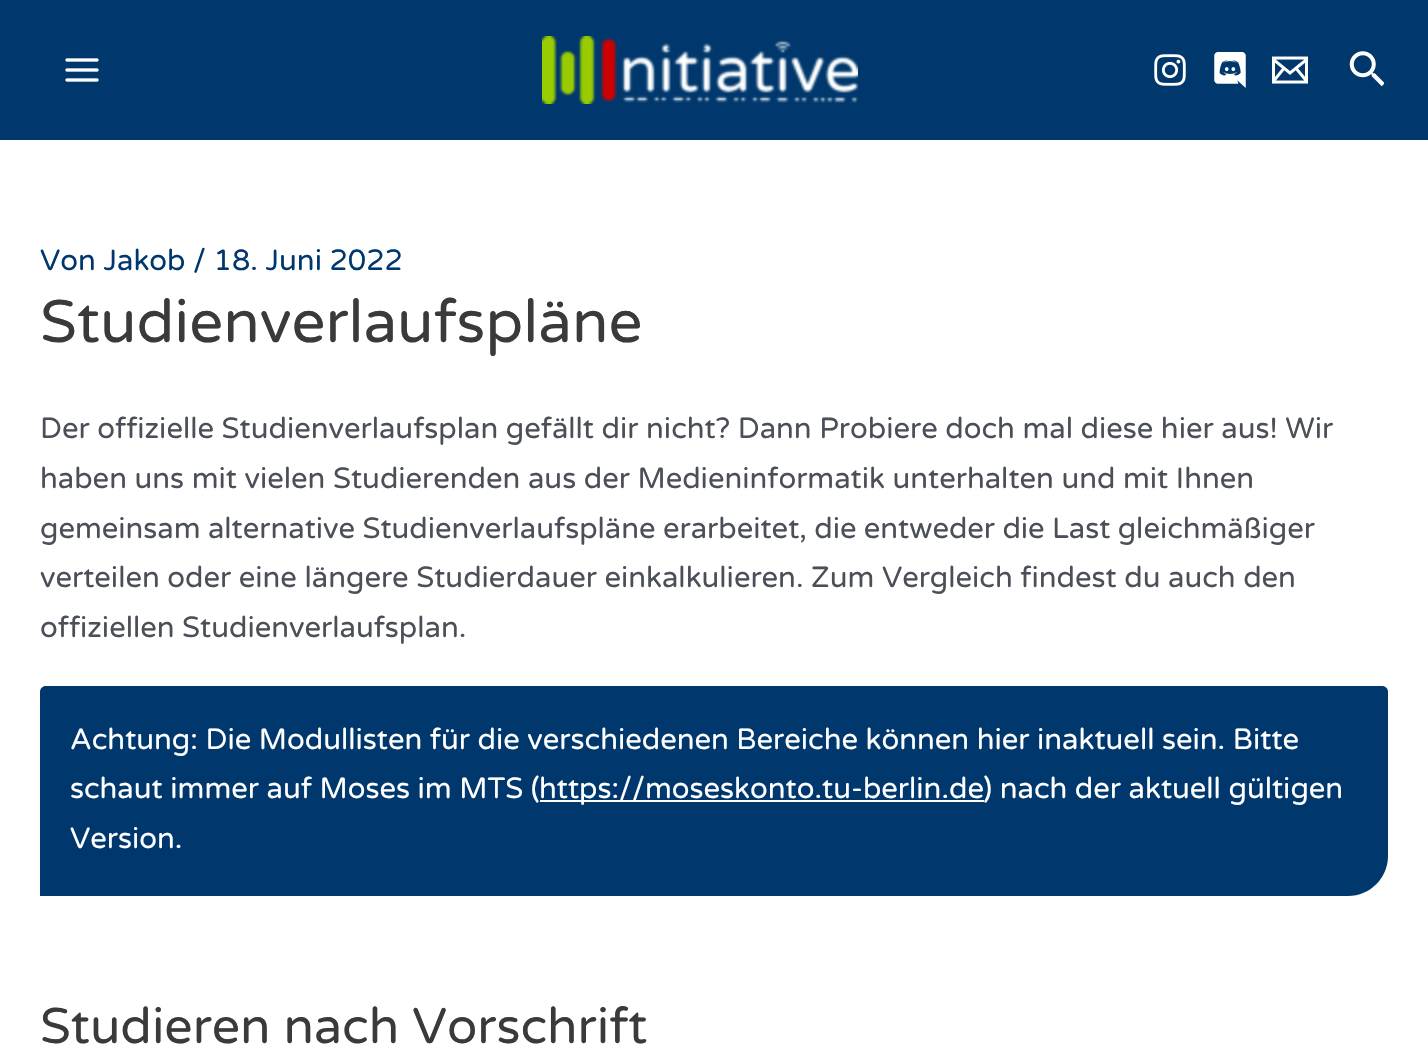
#include "include/core/SkBlurTypes.h"
#include "include/core/SkCanvas.h"
#include "include/core/SkData.h"
#include "include/core/SkFont.h"
#include "include/core/SkFontMgr.h"
#include "include/core/SkImage.h"
#include "include/core/SkMaskFilter.h"
#include "include/core/SkPaint.h"
#include "include/core/SkPathBuilder.h"
#include "include/core/SkTextBlob.h"
#include "include/effects/SkDashPathEffect.h"
#include "include/effects/SkGradientShader.h"
#include "include/utils/SkParsePath.h"

extern sk_sp<SkFontMgr> fontMgr;

static SkFont font(const char* family, int weight, float size, bool italic = false) {
    SkFontStyle style(weight, SkFontStyle::kNormal_Width,
        italic ? SkFontStyle::kItalic_Slant : SkFontStyle::kUpright_Slant);
    SkFont result(fontMgr->matchFamilyStyle(family, style), size);
    result.setSubpixel(true);
    return result;
}

static void drawLabel(SkCanvas* canvas, const char* s, float x, float y, const SkFont& font, SkColor color) {
    SkPaint ink(SkColor4f::FromColor(color));
    ink.setAntiAlias(true);
    canvas->drawString(s, x, y, font, ink);
}

static void drawTracked(SkCanvas* canvas, const char* s, float x, float y, const SkFont& font, const SkPaint& ink, float letter, float word) {
    std::vector<SkGlyphID> glyphs(font.countText(s, strlen(s), SkTextEncoding::kUTF8));
    std::vector<float> xs(glyphs.size());
    font.textToGlyphs(s, strlen(s), SkTextEncoding::kUTF8, glyphs);
    font.getXPos(glyphs, xs, x);
    float extra = 0;
    for (size_t i = 0; i < glyphs.size(); i++) {
        xs[i] += extra;
        extra += letter + word * (glyphs[i] == font.unicharToGlyph(' '));
    }
    canvas->drawTextBlob(SkTextBlob::MakeFromPosHGlyphs(glyphs, xs, y, font), 0, 0, ink);
}

static void fillRect(SkCanvas* canvas, float x, float y, float w, float h, SkColor color) {
    SkPaint ink(SkColor4f::FromColor(color));
    ink.setAntiAlias(true);
    canvas->drawRect(SkRect::MakeXYWH(x, y, w, h), ink);
}

static void drawPhoto(SkCanvas* canvas, const char* path, float x, float y, float w, float h) {
    auto image = SkImages::DeferredFromEncodedData(SkData::MakeFromFileName(path));
    canvas->drawImageRect(image, SkRect::MakeXYWH(x, y, w, h), SkSamplingOptions());
}

static SkPath parsePath(const char* data, bool evenOdd = false) {
    SkPath result = *SkParsePath::FromSVGString(data);
    if (evenOdd) result.setFillType(SkPathFillType::kEvenOdd);
    return result;
}

void draw(SkCanvas* canvas) {
    SkPaint paint;
    paint.setAntiAlias(true);
    canvas->clear(0xFFFFFFFF);
    fillRect(canvas, 0, 0, 1428, 140, 0xFF00386D);
    drawPhoto(canvas, "assets/img1.png", 65, 58, 34, 24);
    drawPhoto(canvas, "assets/img2.png", 542, 36, 316, 68);
    drawPhoto(canvas, "assets/img3.png", 1154, 54, 32, 32);
    drawPhoto(canvas, "assets/img4.png", 1214, 52, 32, 36);
    drawPhoto(canvas, "assets/img5.png", 1272, 56, 36, 28);
    drawPhoto(canvas, "assets/img6.png", 1349, 51, 35, 36);
    SkFont font1 = font("Varela Round", 400, 29.2f);
    drawLabel(canvas, "Von Jakob / 18. Juni 2022", 40, 270, font1, 0xFF00386D);
    SkFont font2 = font("Varela Round", 400, 60);
    drawLabel(canvas, "Studienverlaufspläne", 40, 342, font2, 0xFF3A3A3A);
    drawLabel(canvas, "Der offizielle Studienverlaufsplan gefällt dir nicht? Dann Probiere doch mal diese hier aus! Wir", 40, 438, font1, 0xFF4B4F58);
    drawLabel(canvas, "haben uns mit vielen Studierenden aus der Medieninformatik unterhalten und mit Ihnen", 40, 488, font1, 0xFF4B4F58);
    paint.setColor(0xFF4B4F58);
    drawTracked(canvas, "gemeinsam alternative Studienverlaufspläne erarbeitet, die entweder die Last gleichmäßiger", 40, 538, font1, paint, 0, -0.25f);
    drawLabel(canvas, "verteilen oder eine längere Studierdauer einkalkulieren. Zum Vergleich findest du auch den", 40, 587, font1, 0xFF4B4F58);
    drawLabel(canvas, "offiziellen Studienverlaufsplan.", 40, 637, font1, 0xFF4B4F58);
    paint.setColor(0xFF00386D);
    canvas->drawPath(parsePath("M46 686H1382C1385.5 686 1388 688.5 1388 692V856C1388 878 1370 896 1348 896H40V692C40 688.5 42.5 686 46 686Z"), paint);
    drawLabel(canvas, "Achtung: Die Modullisten für die verschiedenen Bereiche können hier inaktuell sein. Bitte", 70, 749, font1, 0xFFFFFFFF);
    drawLabel(canvas, "schaut immer auf Moses im MTS (", 70, 798, font1, 0xFFFFFFFF);
    fillRect(canvas, 540, 800, 444, 2, 0xFFFFFFFF);
    drawLabel(canvas, "https://moseskonto.tu-berlin.de", 539, 798, font1, 0xFFFFFFFF);
    drawLabel(canvas, ") nach der aktuell gültigen", 983, 798, font1, 0xFFFFFFFF);
    drawLabel(canvas, "Version.", 70, 848, font1, 0xFFFFFFFF);
    SkFont font3 = font("Varela Round", 400, 50);
    drawLabel(canvas, "Studieren nach Vorschrift", 40, 1043, font3, 0xFF3A3A3A);
}
